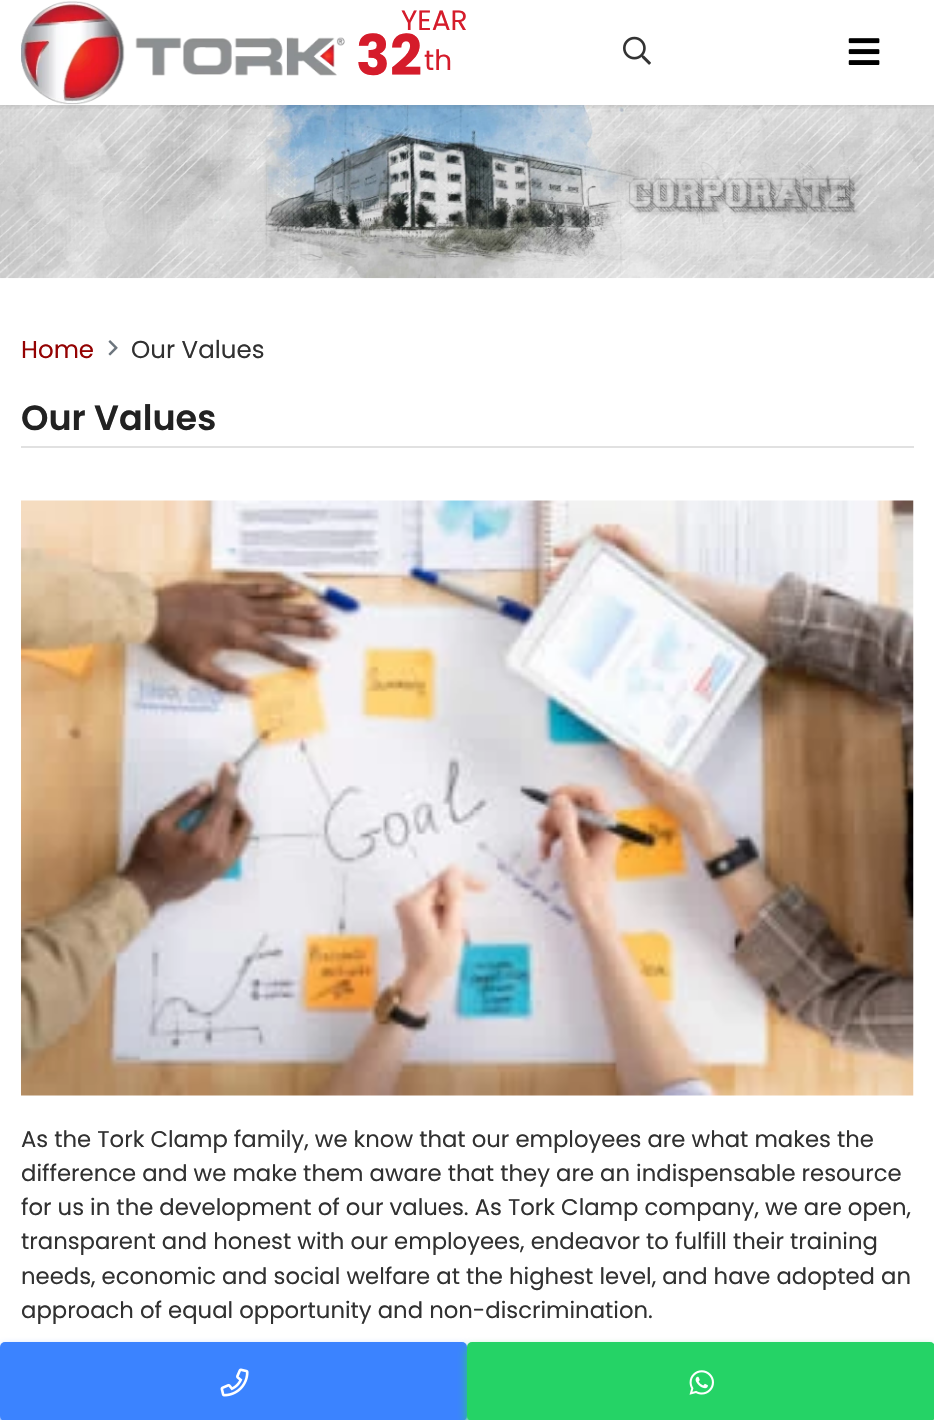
#include "include/core/SkBlurTypes.h"
#include "include/core/SkCanvas.h"
#include "include/core/SkData.h"
#include "include/core/SkFont.h"
#include "include/core/SkFontMgr.h"
#include "include/core/SkImage.h"
#include "include/core/SkMaskFilter.h"
#include "include/core/SkPaint.h"
#include "include/core/SkPathBuilder.h"
#include "include/core/SkTextBlob.h"
#include "include/effects/SkDashPathEffect.h"
#include "include/effects/SkGradientShader.h"
#include "include/utils/SkParsePath.h"

extern sk_sp<SkFontMgr> fontMgr;

static SkFont font(const char* family, int weight, float size, bool italic = false) {
    SkFontStyle style(weight, SkFontStyle::kNormal_Width,
        italic ? SkFontStyle::kItalic_Slant : SkFontStyle::kUpright_Slant);
    SkFont result(fontMgr->matchFamilyStyle(family, style), size);
    result.setSubpixel(true);
    return result;
}

static void drawLabel(SkCanvas* canvas, const char* s, float x, float y, const SkFont& font, SkColor color) {
    SkPaint ink(SkColor4f::FromColor(color));
    ink.setAntiAlias(true);
    canvas->drawString(s, x, y, font, ink);
}

static void fillRect(SkCanvas* canvas, float x, float y, float w, float h, SkColor color) {
    SkPaint ink(SkColor4f::FromColor(color));
    ink.setAntiAlias(true);
    canvas->drawRect(SkRect::MakeXYWH(x, y, w, h), ink);
}

static void fillRRect(SkCanvas* canvas, float x, float y, float w, float h, float radius, SkColor color) {
    SkPaint ink(SkColor4f::FromColor(color));
    ink.setAntiAlias(true);
    canvas->drawRoundRect(SkRect::MakeXYWH(x, y, w, h), radius, radius, ink);
}

static void drawPhoto(SkCanvas* canvas, const char* path, float x, float y, float w, float h) {
    auto image = SkImages::DeferredFromEncodedData(SkData::MakeFromFileName(path));
    canvas->drawImageRect(image, SkRect::MakeXYWH(x, y, w, h), SkSamplingOptions());
}

void draw(SkCanvas* canvas) {
    SkPaint paint;
    paint.setAntiAlias(true);
    canvas->clear(0xFFFFFFFF);
    drawPhoto(canvas, "assets/img4.png", 0, 105, 934, 174);
    canvas->save();
    canvas->clipRect(SkRect::MakeXYWH(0, 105, 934, 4));
    paint.setColor(0x1A000000);
    paint.setMaskFilter(SkMaskFilter::MakeBlur(kNormal_SkBlurStyle, 2));
    canvas->drawRect(SkRect::MakeXYWH(-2, -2, 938, 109), paint);
    paint.setMaskFilter(nullptr);
    canvas->restore();
    drawPhoto(canvas, "assets/img1.png", 21, 1, 324, 104);
    SkFont font1 = font("Poppins", 400, 28);
    drawLabel(canvas, "YEAR", 401, 30, font1, 0xFFD51C2B);
    SkFont font2 = font("Poppins", 700, 56);
    drawLabel(canvas, "32", 356, 75, font2, 0xFFD51C2B);
    drawLabel(canvas, "th", 424, 70, font1, 0xFFD51C2B);
    drawPhoto(canvas, "assets/img2.png", 623, 36, 28, 29);
    drawPhoto(canvas, "assets/img3.png", 848, 38, 32, 27);
    SkFont font3 = font("Poppins", 400, 24.5f);
    drawLabel(canvas, "Home", 21, 358, font3, 0xFF940202);
    drawPhoto(canvas, "assets/img5.png", 108, 340, 10, 16);
    drawLabel(canvas, "Our Values", 131, 358, font3, 0xFF313131);
    fillRect(canvas, 21, 446, 893, 2, 0xFFE1E1E1);
    SkFont font4 = font("Poppins", 600, 35);
    drawLabel(canvas, "Our Values", 21, 430, font4, 0xFF222222);
    drawPhoto(canvas, "assets/img6.png", 21, 500, 893, 596);
    SkFont font5 = font("Poppins", 400, 22.75f);
    drawLabel(canvas, "As the Tork Clamp family, we know that our employees are what makes the", 21, 1147, font5, 0xFF313131);
    drawLabel(canvas, "difference and we make them aware that they are an indispensable resource", 21, 1181, font5, 0xFF313131);
    drawLabel(canvas, "for us in the development of our values. As Tork Clamp company, we are open,", 21, 1215, font5, 0xFF313131);
    drawLabel(canvas, "transparent and honest with our employees, endeavor to fulfill their training", 21, 1249, font5, 0xFF313131);
    drawLabel(canvas, "needs, economic and social welfare at the highest level, and have adopted an", 21, 1284, font5, 0xFF313131);
    drawLabel(canvas, "approach of equal opportunity and non-discrimination.", 21, 1318, font5, 0xFF313131);
    paint.setColor(0xFF3B83FF);
    paint.setMaskFilter(SkMaskFilter::MakeBlur(kNormal_SkBlurStyle, 5));
    canvas->drawRoundRect(SkRect::MakeXYWH(0, 1348, 467, 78), 5, 5, paint);
    paint.setMaskFilter(nullptr);
    fillRRect(canvas, 0, 1342, 467, 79, 5, 0xFF3B83FF);
    drawPhoto(canvas, "assets/img7.png", 220, 1368, 29, 29);
    paint.setColor(0xFF25D366);
    paint.setMaskFilter(SkMaskFilter::MakeBlur(kNormal_SkBlurStyle, 5));
    canvas->drawRoundRect(SkRect::MakeXYWH(467, 1348, 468, 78), 5, 5, paint);
    paint.setMaskFilter(nullptr);
    fillRRect(canvas, 467, 1342, 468, 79, 5, 0xFF25D366);
    drawPhoto(canvas, "assets/img8.png", 689, 1370, 25, 25);
}
